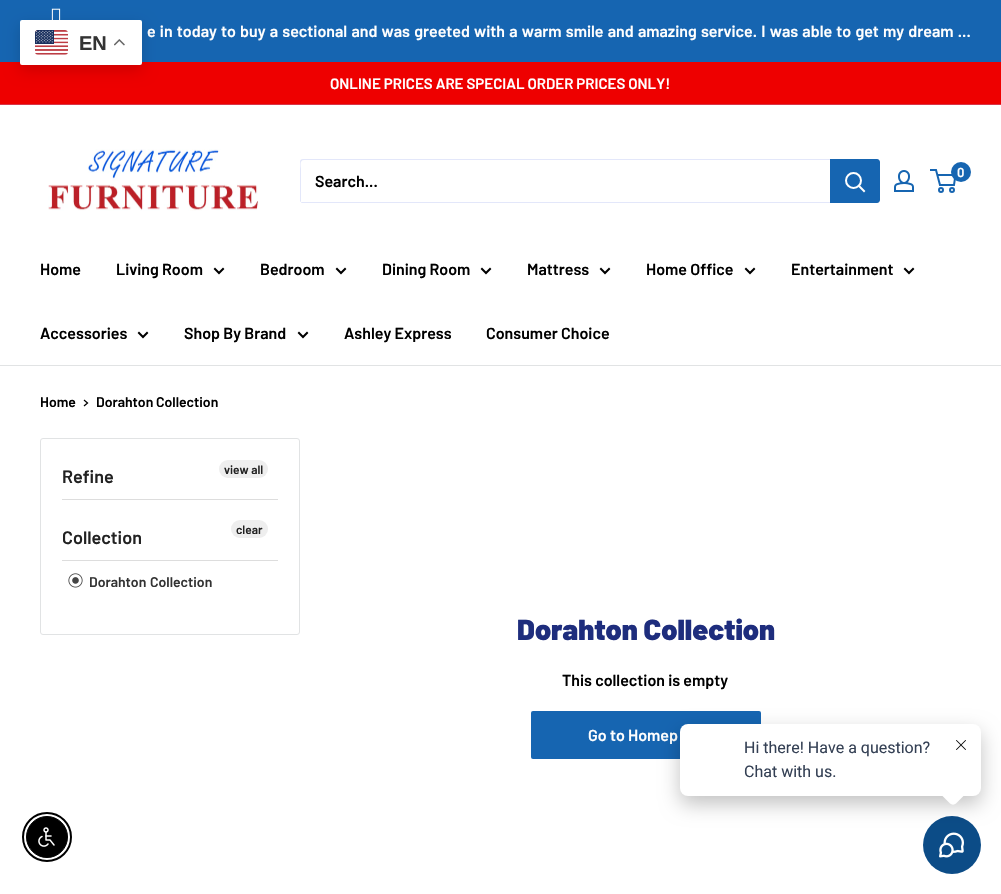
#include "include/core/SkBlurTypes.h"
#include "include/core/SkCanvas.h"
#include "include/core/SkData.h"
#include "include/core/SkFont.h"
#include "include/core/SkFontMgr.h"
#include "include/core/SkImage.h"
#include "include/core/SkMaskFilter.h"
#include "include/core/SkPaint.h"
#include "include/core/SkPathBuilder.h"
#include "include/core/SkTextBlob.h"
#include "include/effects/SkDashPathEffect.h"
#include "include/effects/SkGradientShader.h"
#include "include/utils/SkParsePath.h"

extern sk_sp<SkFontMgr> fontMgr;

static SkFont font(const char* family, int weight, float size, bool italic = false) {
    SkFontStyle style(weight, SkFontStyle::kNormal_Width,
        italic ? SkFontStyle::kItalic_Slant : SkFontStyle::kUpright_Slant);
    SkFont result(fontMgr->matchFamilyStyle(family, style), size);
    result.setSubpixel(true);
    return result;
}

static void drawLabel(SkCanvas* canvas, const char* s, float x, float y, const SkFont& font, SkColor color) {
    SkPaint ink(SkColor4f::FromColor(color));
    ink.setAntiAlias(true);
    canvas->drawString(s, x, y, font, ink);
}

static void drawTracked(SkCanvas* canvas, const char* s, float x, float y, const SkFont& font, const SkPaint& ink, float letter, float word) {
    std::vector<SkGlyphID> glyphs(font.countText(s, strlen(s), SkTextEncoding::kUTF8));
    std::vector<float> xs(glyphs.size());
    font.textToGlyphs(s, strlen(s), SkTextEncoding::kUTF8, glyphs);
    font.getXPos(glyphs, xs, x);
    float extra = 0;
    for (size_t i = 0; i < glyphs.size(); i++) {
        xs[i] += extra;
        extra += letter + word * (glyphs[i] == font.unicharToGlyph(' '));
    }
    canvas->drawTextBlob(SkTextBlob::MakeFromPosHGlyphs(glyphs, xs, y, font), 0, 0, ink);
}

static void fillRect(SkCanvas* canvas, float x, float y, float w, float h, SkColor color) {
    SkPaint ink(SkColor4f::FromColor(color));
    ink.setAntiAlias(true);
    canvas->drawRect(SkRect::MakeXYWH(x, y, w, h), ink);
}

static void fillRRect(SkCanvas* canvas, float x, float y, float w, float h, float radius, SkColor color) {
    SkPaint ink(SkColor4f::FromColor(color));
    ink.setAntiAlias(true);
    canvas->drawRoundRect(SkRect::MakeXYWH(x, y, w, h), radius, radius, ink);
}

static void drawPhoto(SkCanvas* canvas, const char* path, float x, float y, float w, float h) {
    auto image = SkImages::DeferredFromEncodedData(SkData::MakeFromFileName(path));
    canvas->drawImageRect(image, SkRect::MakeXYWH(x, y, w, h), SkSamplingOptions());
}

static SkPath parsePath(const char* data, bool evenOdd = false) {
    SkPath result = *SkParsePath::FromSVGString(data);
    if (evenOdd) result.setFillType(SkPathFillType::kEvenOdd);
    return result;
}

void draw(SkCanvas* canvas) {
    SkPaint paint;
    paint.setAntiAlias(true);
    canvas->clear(0xFFFFFFFF);
    fillRect(canvas, 0, 0, 1001, 62, 0xFF1665B1);
    drawPhoto(canvas, "assets/img1.png", 51, 8, 10, 12);
    SkFont font1 = font("Barlow", 600, 16);
    paint.setColor(0xFFFFFFFF);
    drawTracked(canvas, "e in today to buy a sectional and was greeted with a warm smile and amazing service. I was able to get my dream ...", 147, 37, font1, paint, 0, 1);
    fillRect(canvas, 0, 62, 1001, 42, 0xFFEE0000);
    paint.setColor(0x26000000);
    paint.setMaskFilter(SkMaskFilter::MakeBlur(kNormal_SkBlurStyle, 7.5f));
    canvas->drawRoundRect(SkRect::MakeXYWH(20, 25, 122, 45), 2, 2, paint);
    paint.setMaskFilter(nullptr);
    fillRRect(canvas, 20, 20, 122, 45, 2, 0xFFFFFFFF);
    drawPhoto(canvas, "assets/img2.png", 35, 30, 33, 25);
    SkFont font2 = font("Liberation Sans", 700, 20);
    drawLabel(canvas, "EN", 79, 50, font2, 0xFF333333);
    drawPhoto(canvas, "assets/img3.png", 114, 39, 11, 7);
    fillRect(canvas, 0, 104, 1001, 1, 0xFFD83548);
    SkFont font3 = font("Barlow", 600, 15);
    drawLabel(canvas, "ONLINE PRICES ARE SPECIAL ORDER PRICES ONLY!", 330, 89, font3, 0xFFFFFFFF);
    drawPhoto(canvas, "assets/img4.png", 48, 149, 211, 62);
    drawPhoto(canvas, "assets/img5.png", 894, 170, 20, 22);
    paint.setStroke(true);
    paint.setStrokeWidth(2);
    paint.setColor(0xFF1665B1);
    canvas->drawCircle(941, 190, 2, paint);
    canvas->drawCircle(952, 190, 2, paint);
    canvas->drawPath(parsePath("M937.5 175H955.5L954 185H940L936 170H930"), paint);
    paint.setStroke(false);
    canvas->drawCircle(961, 172, 10, paint);
    SkFont font4 = font("Barlow", 600, 13);
    drawLabel(canvas, "0", 957, 177, font4, 0xFFFFFFFF);
    paint.setColor(0xFFE3E7FA);
    canvas->drawPath(parsePath("M301 202C301 203 302 203 303 203H877C879 203 880 202 880 200V162C880 161 880 160 879 160V193C879 195 881 202 876 202Z"), paint);
    canvas->drawPath(parsePath("M304 160H879C879 159 878 159 877 159H303C301 159 300 160 300 162V200C300 201 300 202 301 202V169C301 167 299 160 304 160Z"), paint);
    drawLabel(canvas, "Search...", 315, 187, font1, 0xFF000000);
    paint.setColor(0xFF1665B1);
    canvas->drawPath(parsePath("M830 159H877C878.5 159 880 160.5 880 162V200C880 201.5 878.5 203 877 203H830Z"), paint);
    paint.setStroke(true);
    paint.setStrokeCap(SkPaint::kSquare_Cap);
    paint.setColor(0xFFFFFFFF);
    canvas->drawPath(parsePath("M864 191L859 186"), paint);
    paint.setStrokeCap(SkPaint::kButt_Cap);
    canvas->drawCircle(853.5f, 180.5f, 7.5f, paint);
    fillRect(canvas, 0, 365, 1001, 1, 0xFFE1E3E4);
    drawLabel(canvas, "Home", 40, 275, font1, 0xFF000000);
    drawLabel(canvas, "Living Room", 116, 275, font1, 0xFF000000);
    paint.setStrokeCap(SkPaint::kSquare_Cap);
    paint.setColor(0xFF000000);
    canvas->drawPath(parsePath("M223 269L219 273L215 269"), paint);
    drawLabel(canvas, "Bedroom", 260, 275, font1, 0xFF000000);
    canvas->drawPath(parsePath("M345 269L341 273L337 269"), paint);
    drawLabel(canvas, "Dining Room", 382, 275, font1, 0xFF000000);
    canvas->drawPath(parsePath("M490 269L486 273L482 269"), paint);
    drawLabel(canvas, "Mattress", 527, 275, font1, 0xFF000000);
    canvas->drawPath(parsePath("M609 269L605 273L601 269"), paint);
    drawLabel(canvas, "Home Office", 646, 275, font1, 0xFF000000);
    canvas->drawPath(parsePath("M754 269L750 273L746 269"), paint);
    drawLabel(canvas, "Entertainment", 791, 275, font1, 0xFF000000);
    canvas->drawPath(parsePath("M913 269L909 273L905 269"), paint);
    drawLabel(canvas, "Accessories", 40, 339, font1, 0xFF000000);
    canvas->drawPath(parsePath("M147 333L143 337L139 333"), paint);
    drawLabel(canvas, "Shop By Brand", 184, 339, font1, 0xFF000000);
    canvas->drawPath(parsePath("M307 333L303 337L299 333"), paint);
    drawLabel(canvas, "Ashley Express", 344, 339, font1, 0xFF000000);
    drawLabel(canvas, "Consumer Choice", 486, 339, font1, 0xFF000000);
    SkFont font5 = font("Barlow", 600, 14);
    drawLabel(canvas, "Home", 40, 407, font5, 0xFF000000);
    paint.setStrokeWidth(1.3f);
    canvas->drawPath(parsePath("M84.5 400.5L87.5 403L84.5 405.5"), paint);
    drawLabel(canvas, "Dorahton Collection", 96, 407, font5, 0xFF000000);
    paint.setStrokeWidth(1);
    paint.setStrokeCap(SkPaint::kButt_Cap);
    paint.setColor(0xFFE1E3E4);
    canvas->drawRoundRect(SkRect::MakeXYWH(40.5f, 438.5f, 259, 196), 2.5f, 2.5f, paint);
    fillRect(canvas, 62, 499, 216, 1, 0xFFDDDDDD);
    SkFont font6 = font("Barlow", 600, 18);
    drawLabel(canvas, "Refine", 62, 483, font6, 0xFF222222);
    fillRRect(canvas, 219, 460, 49, 18, 9, 0xFFEEEEEE);
    SkFont font7 = font("Barlow", 600, 12);
    drawLabel(canvas, "view all", 224, 474, font7, 0xFF222222);
    fillRRect(canvas, 231, 520, 37, 18, 9, 0xFFEEEEEE);
    drawLabel(canvas, "clear", 236, 534, font7, 0xFF222222);
    drawPhoto(canvas, "assets/img6.png", 68, 573, 15, 15);
    paint.setStroke(false);
    paint.setColor(0xFF333333);
    drawTracked(canvas, "Dorahton Collection", 89, 587, font5, paint, 0, 1);
    fillRect(canvas, 62, 560, 216, 1, 0xFFDDDDDD);
    drawLabel(canvas, "Collection", 62, 544, font6, 0xFF222222);
    SkFont font8 = font("Barlow", 900, 29);
    drawLabel(canvas, "Dorahton Collection", 517, 640, font8, 0xFF1E2D7D);
    drawLabel(canvas, "This collection is empty", 562, 686, font1, 0xFF000000);
    fillRRect(canvas, 531, 711, 230, 48, 2, 0xFF1665B1);
    drawLabel(canvas, "Go to Homep", 588, 741, font1, 0xFFFFFFFF);
    paint.setColor(0xFF0C4C87);
    canvas->drawCircle(952, 845, 29, paint);
    drawPhoto(canvas, "assets/img8.png", 939, 832, 25, 26);
    paint.setColor(0x3D000000);
    paint.setMaskFilter(SkMaskFilter::MakeBlur(kNormal_SkBlurStyle, 10));
    canvas->drawRoundRect(SkRect::MakeXYWH(680, 732, 301, 72), 8, 8, paint);
    paint.setMaskFilter(nullptr);
    fillRRect(canvas, 680, 724, 301, 72, 8, 0xFFFFFFFF);
    SkFont font9 = font("Roboto", 400, 16);
    drawLabel(canvas, "Hi there! Have a question?", 744, 753, font9, 0xFF344054);
    drawLabel(canvas, "Chat with us.", 744, 777, font9, 0xFF344054);
    paint.setColor(0xFFFFFFFF);
    canvas->drawPath(parsePath("M956 780.5L964.5 789C966 790.5 966 793.5 964.5 795L956 803.5C954.5 805 951.5 805 950 803.5L941.5 795C940 793.5 940 790.5 941.5 789L950 780.5C951.5 779 954.5 779 956 780.5Z"), paint);
    drawPhoto(canvas, "assets/img7.png", 956, 740, 10, 10);
    paint.setStroke(true);
    paint.setStrokeWidth(2);
    paint.setColor(0xFF000000);
    canvas->drawCircle(47, 837, 24, paint);
    paint.setStroke(false);
    canvas->drawCircle(47, 837, 20.5f, paint);
    paint.setStroke(true);
    paint.setStrokeWidth(1);
    canvas->drawCircle(47, 837, 20.5f, paint);
    drawPhoto(canvas, "assets/img9.png", 38, 827, 17, 20);
}
